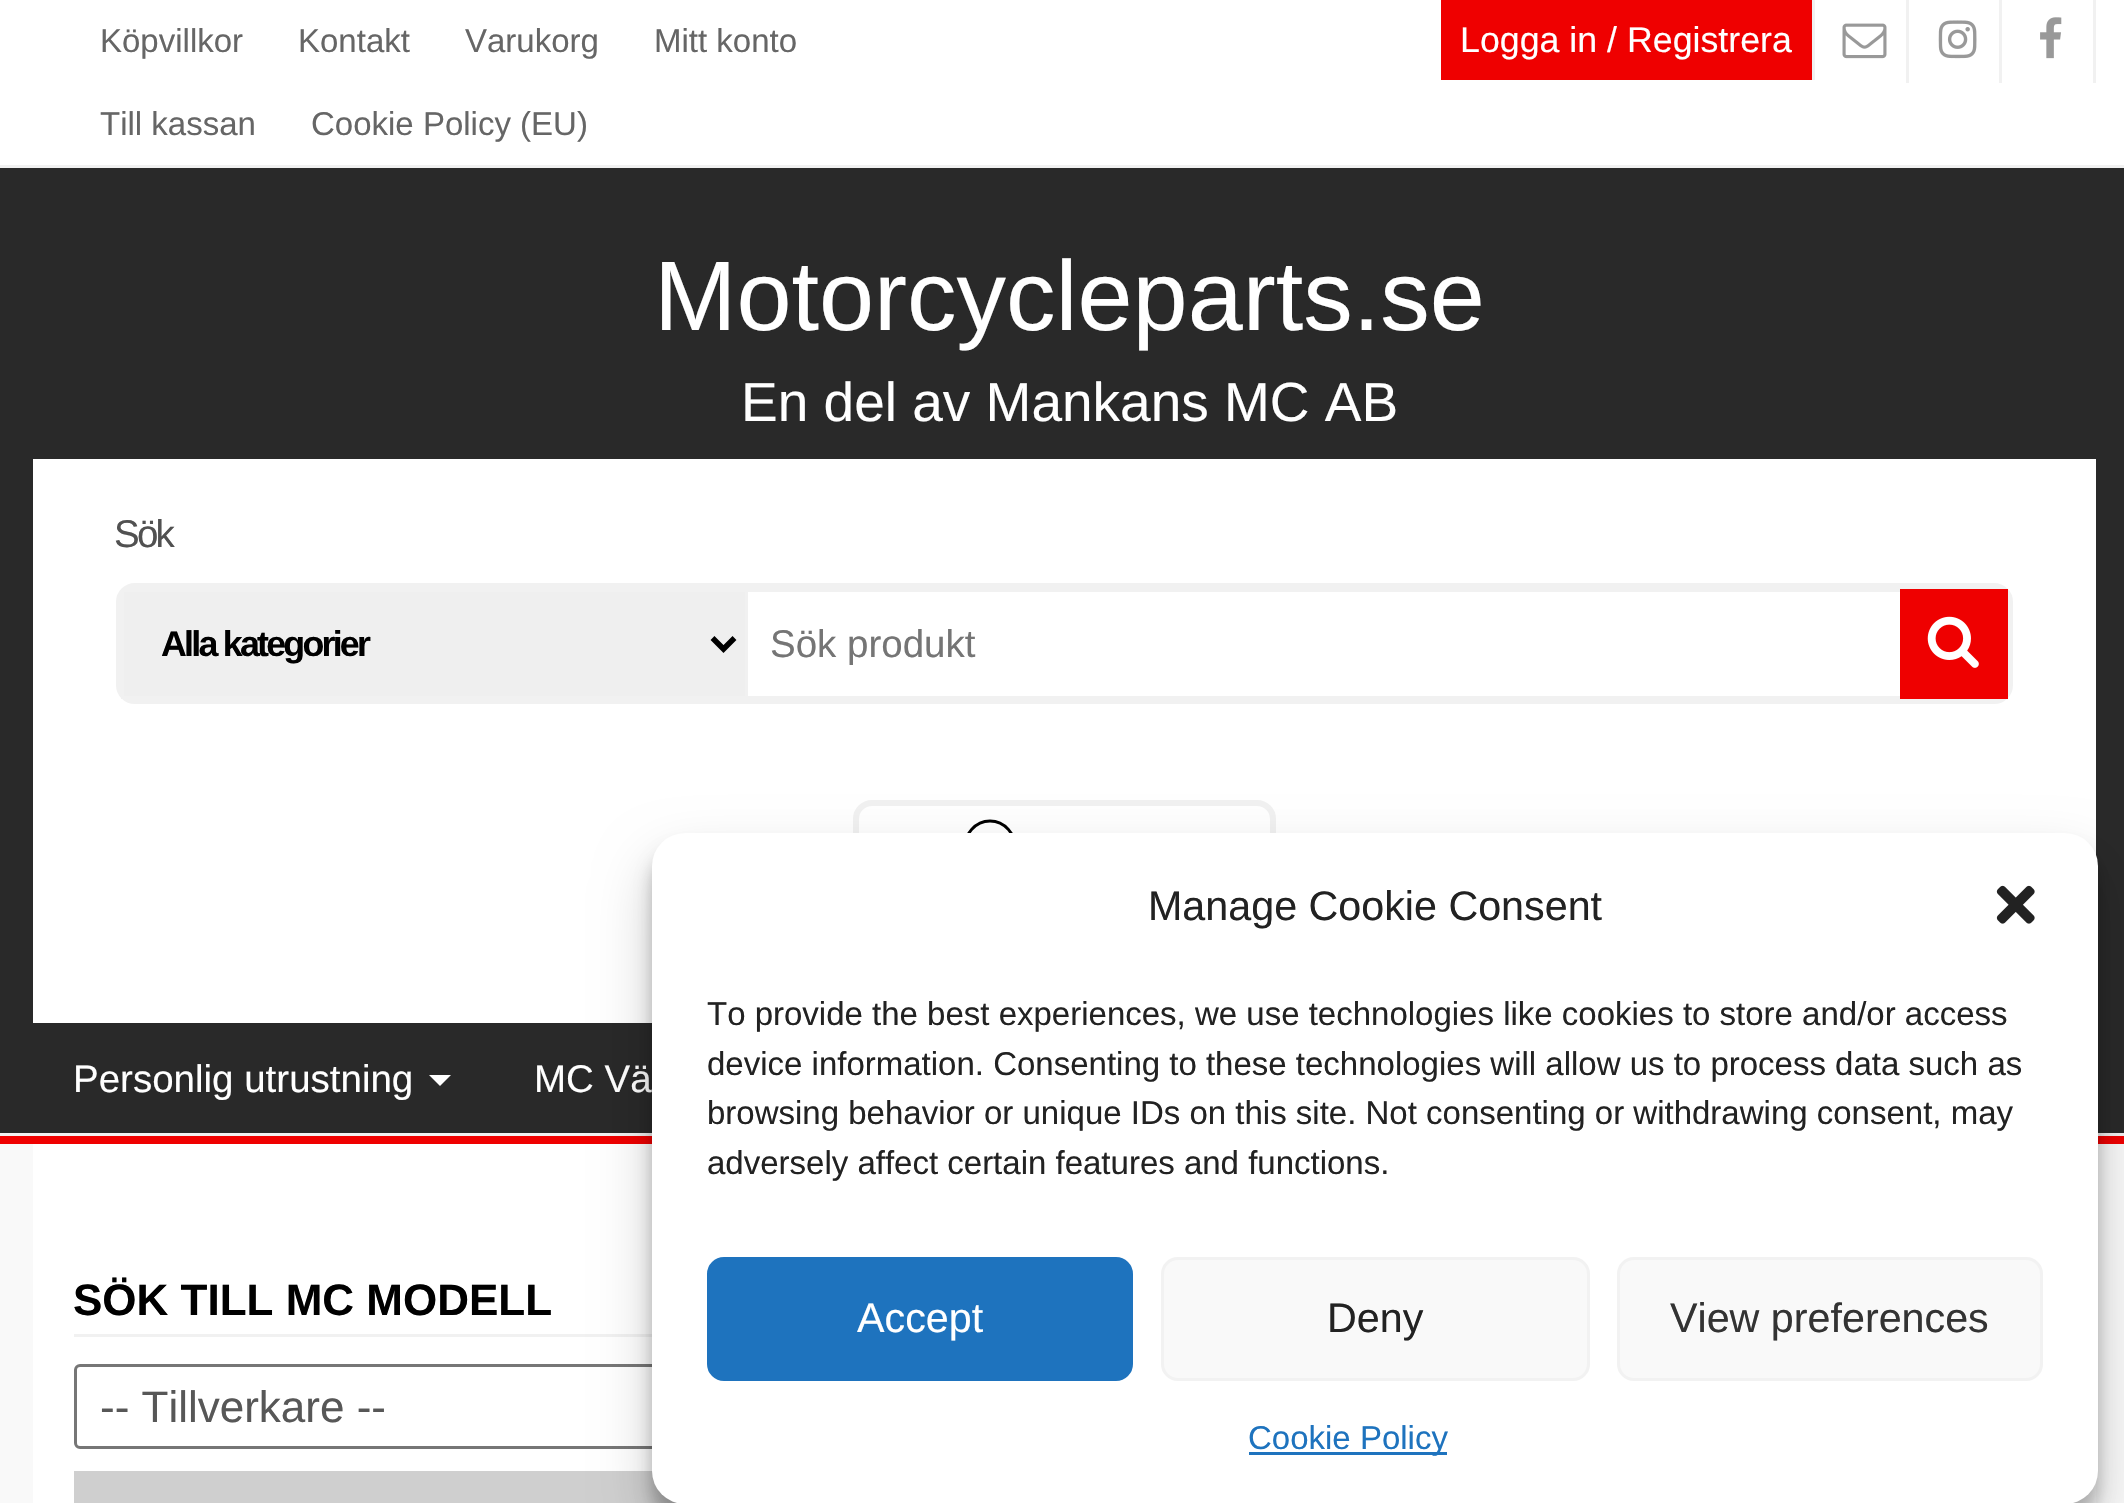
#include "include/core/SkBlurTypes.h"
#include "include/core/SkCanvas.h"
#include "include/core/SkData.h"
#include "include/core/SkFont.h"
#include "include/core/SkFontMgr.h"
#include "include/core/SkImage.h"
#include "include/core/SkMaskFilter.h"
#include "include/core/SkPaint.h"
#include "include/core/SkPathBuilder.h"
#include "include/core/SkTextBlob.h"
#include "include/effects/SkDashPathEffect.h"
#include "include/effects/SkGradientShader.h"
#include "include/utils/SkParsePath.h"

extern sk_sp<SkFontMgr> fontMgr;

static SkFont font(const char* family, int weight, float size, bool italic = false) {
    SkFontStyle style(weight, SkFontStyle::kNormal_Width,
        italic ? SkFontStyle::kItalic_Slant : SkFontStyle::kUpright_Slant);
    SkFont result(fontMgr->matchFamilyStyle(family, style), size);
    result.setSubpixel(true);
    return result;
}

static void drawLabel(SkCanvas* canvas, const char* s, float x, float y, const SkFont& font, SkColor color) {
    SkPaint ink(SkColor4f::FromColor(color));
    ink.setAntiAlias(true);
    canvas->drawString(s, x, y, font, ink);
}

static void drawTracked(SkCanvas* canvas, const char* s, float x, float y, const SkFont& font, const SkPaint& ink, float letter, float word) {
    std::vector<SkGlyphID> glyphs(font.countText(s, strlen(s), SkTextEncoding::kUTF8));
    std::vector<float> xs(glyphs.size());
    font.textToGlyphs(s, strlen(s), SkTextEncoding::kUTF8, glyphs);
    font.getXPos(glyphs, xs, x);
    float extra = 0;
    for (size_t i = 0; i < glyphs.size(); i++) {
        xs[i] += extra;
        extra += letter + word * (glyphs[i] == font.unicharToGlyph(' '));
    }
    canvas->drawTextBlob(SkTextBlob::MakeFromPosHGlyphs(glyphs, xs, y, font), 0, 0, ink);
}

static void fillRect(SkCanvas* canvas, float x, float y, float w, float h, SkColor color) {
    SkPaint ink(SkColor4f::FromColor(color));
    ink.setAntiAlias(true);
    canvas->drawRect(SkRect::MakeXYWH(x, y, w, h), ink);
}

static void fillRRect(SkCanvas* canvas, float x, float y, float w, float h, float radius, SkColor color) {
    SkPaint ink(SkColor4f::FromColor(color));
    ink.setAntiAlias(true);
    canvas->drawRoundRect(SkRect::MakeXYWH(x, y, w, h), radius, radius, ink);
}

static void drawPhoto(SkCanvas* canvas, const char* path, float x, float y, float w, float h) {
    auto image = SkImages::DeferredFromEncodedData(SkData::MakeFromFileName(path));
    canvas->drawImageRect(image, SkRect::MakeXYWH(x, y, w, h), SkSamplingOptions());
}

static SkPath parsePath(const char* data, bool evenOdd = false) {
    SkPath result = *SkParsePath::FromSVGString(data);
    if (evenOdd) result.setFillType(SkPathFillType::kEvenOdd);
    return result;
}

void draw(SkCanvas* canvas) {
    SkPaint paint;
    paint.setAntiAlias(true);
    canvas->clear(0xFFF9F9F9);
    fillRect(canvas, 0, 1136, 2124, 8, 0xFFEF0000);
    fillRect(canvas, 0, 0, 2124, 165, 0xFFFFFFFF);
    fillRect(canvas, 0, 165, 2124, 3, 0xFFF1F1F1);
    SkFont font1 = font("Liberation Sans", 400, 33);
    drawLabel(canvas, "Köpvillkor", 100, 52, font1, 0xFF666666);
    drawLabel(canvas, "Kontakt", 298, 52, font1, 0xFF666666);
    drawLabel(canvas, "Varukorg", 465, 52, font1, 0xFF666666);
    drawLabel(canvas, "Mitt konto", 654, 52, font1, 0xFF666666);
    drawLabel(canvas, "Till kassan", 100, 135, font1, 0xFF666666);
    drawLabel(canvas, "Cookie Policy (EU)", 311, 135, font1, 0xFF666666);
    fillRect(canvas, 1441, 0, 371, 80, 0xFFEF0000);
    SkFont font2 = font("Liberation Sans", 400, 35.75f);
    drawLabel(canvas, "Logga in / Registrera", 1460, 52, font2, 0xFFFFFFFF);
    fillRect(canvas, 1812, 0, 3, 80, 0xFFF1F1F1);
    fillRect(canvas, 1906, 0, 3, 83, 0xFFF1F1F1);
    drawPhoto(canvas, "assets/img1.png", 1842, 23, 45, 36);
    fillRect(canvas, 1999, 0, 3, 83, 0xFFF1F1F1);
    drawPhoto(canvas, "assets/img2.png", 1938, 20, 39, 39);
    fillRect(canvas, 2093, 0, 3, 83, 0xFFF1F1F1);
    drawPhoto(canvas, "assets/img3.png", 2040, 17, 22, 42);
    fillRect(canvas, 0, 168, 2124, 965, 0xFF292929);
    fillRect(canvas, 0, 1133, 2124, 3, 0xFFF1F1F1);
    SkFont font3 = font("Liberation Sans", 400, 99);
    drawLabel(canvas, "Motorcycleparts.se", 654, 330, font3, 0xFFFFFFFF);
    SkFont font4 = font("Liberation Sans", 400, 55);
    drawLabel(canvas, "En del av Mankans MC AB", 741, 421, font4, 0xFFFFFFFF);
    fillRect(canvas, 33, 459, 2063, 564, 0xFFFFFFFF);
    SkFont font5 = font("Liberation Sans", 400, 38.5f);
    paint.setColor(0xFF515151);
    drawTracked(canvas, "Sök", 114, 547, font5, paint, -2.75f, 0);
    paint.setStroke(true);
    paint.setStrokeWidth(6);
    paint.setColor(0xFFF1F1F1);
    canvas->drawRoundRect(SkRect::MakeXYWH(119, 586, 1891, 115), 16, 16, paint);
    paint.setStroke(false);
    paint.setColor(0xFFEFEFEF);
    canvas->drawRect(SkRect::MakeXYWH(122.5f, 590.5f, 624, 107), paint);
    paint.setStroke(true);
    paint.setStrokeWidth(3);
    paint.setColor(0xFFF1F1F1);
    canvas->drawRect(SkRect::MakeXYWH(122.5f, 590.5f, 624, 107), paint);
    paint.setStrokeWidth(5.5f);
    paint.setColor(0xFF000000);
    canvas->drawPath(parsePath("M712.5 638L723.5 649L734.5 638"), paint);
    SkFont font6 = font("Liberation Sans", 700, 35.75f);
    paint.setStroke(false);
    drawTracked(canvas, "Alla kategorier", 161, 656, font6, paint, -2.75f, 0);
    paint.setStroke(true);
    paint.setStrokeWidth(3);
    paint.setColor(0xFFF1F1F1);
    canvas->drawRect(SkRect::MakeXYWH(746.5f, 590.5f, 1254, 107), paint);
    drawLabel(canvas, "Sök produkt", 770, 657, font5, 0xFF757575);
    fillRect(canvas, 1900, 589, 108, 110, 0xFFEF0000);
    drawPhoto(canvas, "assets/img4.png", 1927, 616, 52, 52);
    paint.setStrokeWidth(6);
    canvas->drawRoundRect(SkRect::MakeXYWH(856, 803, 417, 176), 16, 16, paint);
    paint.setStrokeWidth(2.8f);
    paint.setColor(0xFF000000);
    canvas->drawPath(parsePath("M990 821C1004.5 821 1016 834 1016 850C1016 865.5 1004.5 878.5 990 878.5C975.5 878.5 964 865.5 964 850C964 834 975.5 821 990 821Z"), paint);
    drawLabel(canvas, "Personlig utrustning", 73, 1092, font5, 0xFFFFFFFF);
    paint.setStroke(false);
    paint.setColor(0xFFFFFFFF);
    canvas->drawPath(parsePath("M429 1075H451L440 1086Z"), paint);
    drawLabel(canvas, "MC Vä", 534, 1092, font5, 0xFFFFFFFF);
    fillRect(canvas, 33, 1144, 2063, 359, 0xFFFFFFFF);
    fillRect(canvas, 74, 1334, 578, 3, 0xFFF1F1F1);
    SkFont font7 = font("Liberation Sans", 700, 44);
    drawLabel(canvas, "SÖK TILL MC MODELL", 73, 1315, font7, 0xFF000000);
    paint.setStroke(true);
    paint.setStrokeWidth(3);
    paint.setColor(0xFF767676);
    canvas->drawRoundRect(SkRect::MakeXYWH(75.5f, 1365.5f, 1936, 82), 4.5f, 4.5f, paint);
    SkFont font8 = font("Liberation Sans", 400, 44);
    drawLabel(canvas, "-- Tillverkare --", 100, 1422, font8, 0xFF575757);
    fillRect(canvas, 74, 1471, 603, 32, 0xFFCFCFCF);
    paint.setStroke(false);
    paint.setColor(0x3B000000);
    paint.setMaskFilter(SkMaskFilter::MakeBlur(kNormal_SkBlurStyle, 8));
    canvas->drawRoundRect(SkRect::MakeXYWH(652, 850, 1446, 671), 33, 33, paint);
    paint.setMaskFilter(nullptr);
    paint.setColor(0x30000000);
    paint.setMaskFilter(SkMaskFilter::MakeBlur(kNormal_SkBlurStyle, 27.5f));
    canvas->drawRoundRect(SkRect::MakeXYWH(652, 861, 1446, 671), 33, 33, paint);
    paint.setMaskFilter(nullptr);
    fillRRect(canvas, 652, 833, 1446, 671, 33, 0xFFFFFFFF);
    SkFont font9 = font("Liberation Sans", 400, 41.25f);
    drawLabel(canvas, "Manage Cookie Consent", 1148, 920, font9, 0xFF222222);
    drawPhoto(canvas, "assets/img5.png", 1996, 885, 39, 39);
    drawLabel(canvas, "To provide the best experiences, we use technologies like cookies to store and/or access", 707, 1025, font1, 0xFF222222);
    drawLabel(canvas, "device information. Consenting to these technologies will allow us to process data such as", 707, 1075, font1, 0xFF222222);
    drawLabel(canvas, "browsing behavior or unique IDs on this site. Not consenting or withdrawing consent, may", 707, 1124, font1, 0xFF222222);
    drawLabel(canvas, "adversely affect certain features and functions.", 707, 1174, font1, 0xFF222222);
    paint.setColor(0xFF1E73BE);
    canvas->drawRoundRect(SkRect::MakeXYWH(708.5f, 1258.5f, 423, 121), 15.5f, 15.5f, paint);
    paint.setStroke(true);
    canvas->drawRoundRect(SkRect::MakeXYWH(708.5f, 1258.5f, 423, 121), 15.5f, 15.5f, paint);
    drawLabel(canvas, "Accept", 857, 1332, font9, 0xFFFFFFFF);
    paint.setStroke(false);
    paint.setColor(0xFFF9F9F9);
    canvas->drawRoundRect(SkRect::MakeXYWH(1162.5f, 1258.5f, 426, 121), 15.5f, 15.5f, paint);
    paint.setStroke(true);
    paint.setColor(0xFFF2F2F2);
    canvas->drawRoundRect(SkRect::MakeXYWH(1162.5f, 1258.5f, 426, 121), 15.5f, 15.5f, paint);
    drawLabel(canvas, "Deny", 1327, 1332, font9, 0xFF222222);
    paint.setStroke(false);
    paint.setColor(0xFFF9F9F9);
    canvas->drawRoundRect(SkRect::MakeXYWH(1618.5f, 1258.5f, 423, 121), 15.5f, 15.5f, paint);
    paint.setStroke(true);
    paint.setColor(0xFFF2F2F2);
    canvas->drawRoundRect(SkRect::MakeXYWH(1618.5f, 1258.5f, 423, 121), 15.5f, 15.5f, paint);
    drawLabel(canvas, "View preferences", 1670, 1332, font9, 0xFF333333);
    fillRect(canvas, 1249, 1452, 198, 3, 0xFF1E73BE);
    drawLabel(canvas, "Cookie Policy", 1248, 1449, font1, 0xFF1E73BE);
}
